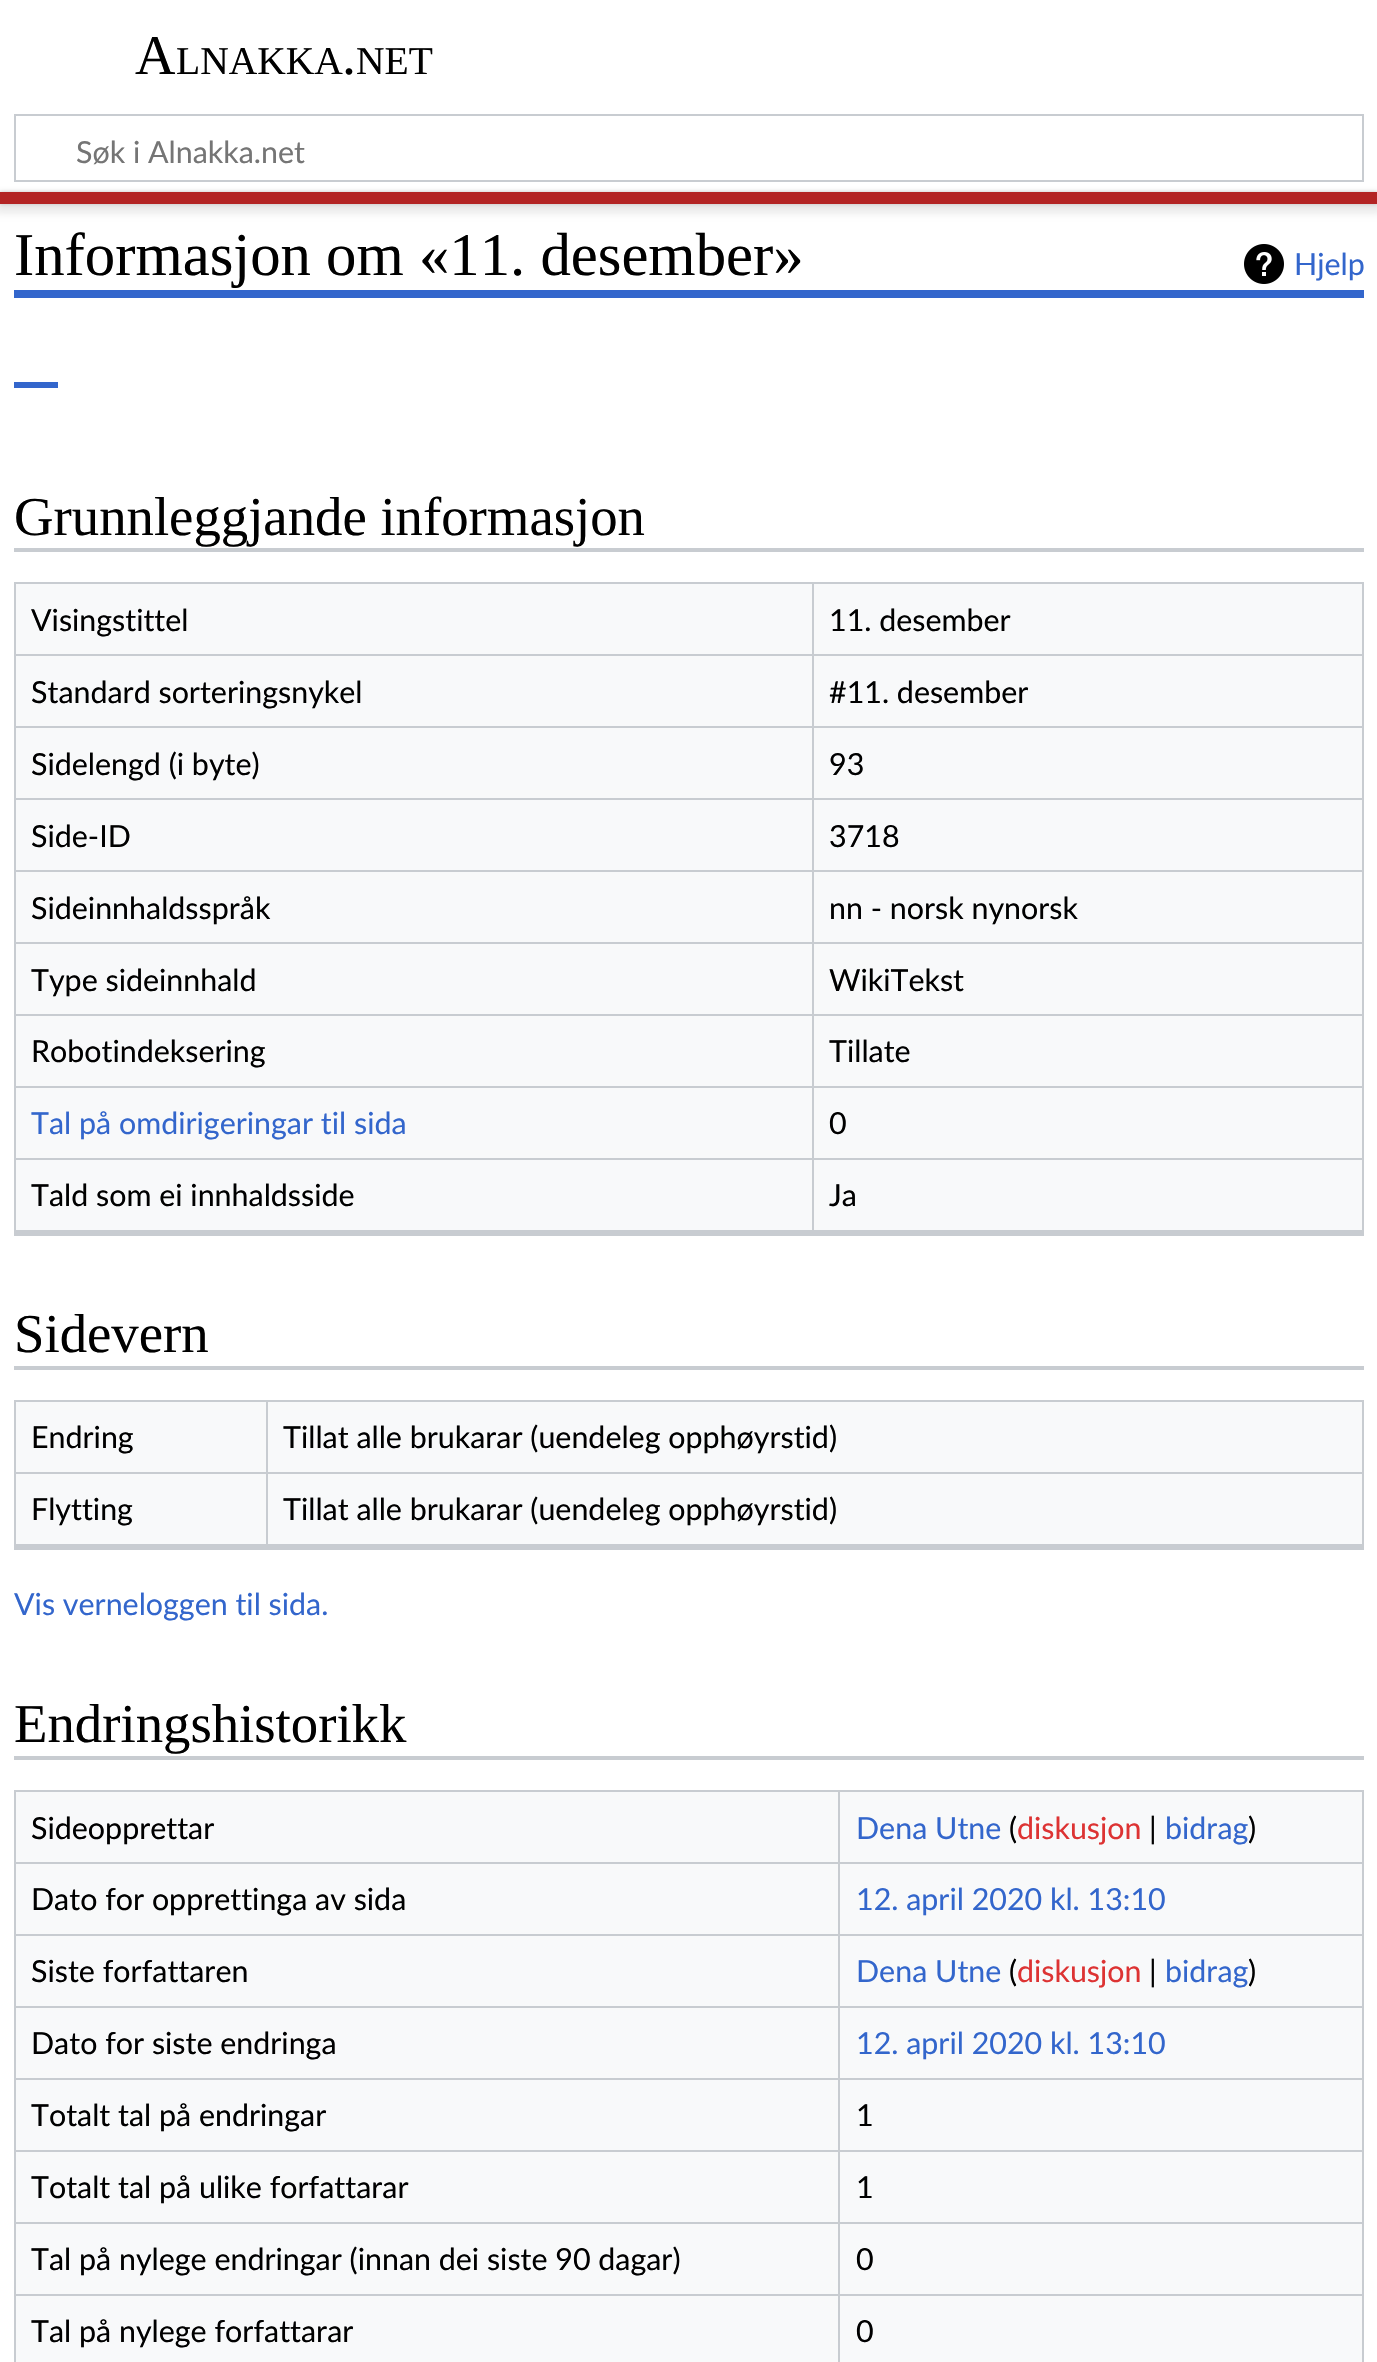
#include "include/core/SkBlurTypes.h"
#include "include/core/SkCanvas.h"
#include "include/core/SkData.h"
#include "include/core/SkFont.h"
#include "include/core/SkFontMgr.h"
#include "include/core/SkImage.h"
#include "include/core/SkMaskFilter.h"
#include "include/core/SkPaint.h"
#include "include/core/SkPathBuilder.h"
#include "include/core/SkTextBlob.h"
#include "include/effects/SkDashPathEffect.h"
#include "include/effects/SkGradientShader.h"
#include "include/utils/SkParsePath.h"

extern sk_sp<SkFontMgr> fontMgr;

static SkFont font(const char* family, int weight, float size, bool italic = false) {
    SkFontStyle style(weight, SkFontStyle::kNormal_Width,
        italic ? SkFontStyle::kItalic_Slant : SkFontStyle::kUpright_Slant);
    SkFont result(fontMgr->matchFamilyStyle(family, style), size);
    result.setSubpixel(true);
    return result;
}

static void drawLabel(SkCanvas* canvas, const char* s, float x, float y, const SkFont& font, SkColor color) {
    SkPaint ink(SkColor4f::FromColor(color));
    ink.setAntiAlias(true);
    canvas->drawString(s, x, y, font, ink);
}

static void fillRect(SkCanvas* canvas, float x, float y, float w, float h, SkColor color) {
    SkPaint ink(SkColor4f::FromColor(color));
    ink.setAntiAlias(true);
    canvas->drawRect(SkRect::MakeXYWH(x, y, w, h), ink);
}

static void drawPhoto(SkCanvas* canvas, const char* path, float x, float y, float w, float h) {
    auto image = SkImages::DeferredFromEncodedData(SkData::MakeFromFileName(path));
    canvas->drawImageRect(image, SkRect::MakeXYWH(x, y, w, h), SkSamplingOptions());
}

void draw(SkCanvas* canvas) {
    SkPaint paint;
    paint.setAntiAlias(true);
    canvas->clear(0xFFFFFFFF);
    SkFont font1 = font("Liberation Serif", 400, 56);
    drawLabel(canvas, "A", 135, 74, font1, 0xFF000000);
    SkFont font2 = font("Liberation Serif", 400, 39.5f);
    drawLabel(canvas, "LNAKKA", 176, 74, font2, 0xFF000000);
    drawLabel(canvas, ".", 342, 74, font1, 0xFF000000);
    drawLabel(canvas, "NET", 356, 74, font2, 0xFF000000);
    paint.setStroke(true);
    paint.setStrokeWidth(2);
    paint.setColor(0xFFC8CCD1);
    canvas->drawRect(SkRect::MakeXYWH(15, 115, 1348, 66), paint);
    SkFont font3 = font("Lato", 400, 30.4f);
    drawLabel(canvas, "Søk i Alnakka.net", 76, 163, font3, 0xFF757575);
    paint.setStroke(false);
    paint.setColor(0x33000000);
    paint.setMaskFilter(SkMaskFilter::MakeBlur(kNormal_SkBlurStyle, 2));
    canvas->drawRect(SkRect::MakeXYWH(0, 192, 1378, 12), paint);
    paint.setMaskFilter(nullptr);
    paint.setColor(0x12000000);
    paint.setMaskFilter(SkMaskFilter::MakeBlur(kNormal_SkBlurStyle, 3));
    canvas->drawRect(SkRect::MakeXYWH(-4, 194, 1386, 20), paint);
    paint.setMaskFilter(nullptr);
    fillRect(canvas, 0, 192, 1377, 12, 0xFFB32424);
    fillRect(canvas, 14, 290, 1350, 8, 0xFF3366CC);
    SkFont font4 = font("Liberation Serif", 400, 60.75f);
    drawLabel(canvas, "Informasjon om «11. desember»", 14, 275, font4, 0xFF000000);
    drawPhoto(canvas, "assets/img1.png", 1244, 244, 40, 40);
    drawLabel(canvas, "Hjelp", 1294, 275, font3, 0xFF3366CC);
    fillRect(canvas, 14, 382, 44, 6, 0xFF3366CC);
    fillRect(canvas, 14, 548, 1350, 4, 0xFFC8CCD1);
    SkFont font5 = font("Liberation Serif", 400, 54.75f);
    drawLabel(canvas, "Grunnleggjande informasjon", 14, 535, font5, 0xFF000000);
    fillRect(canvas, 16, 584, 1346, 646, 0xFFF8F9FA);
    fillRect(canvas, 14, 582, 1350, 2, 0xFFC8CCD1);
    fillRect(canvas, 1362, 582, 2, 654, 0xFFC8CCD1);
    fillRect(canvas, 14, 582, 2, 654, 0xFFC8CCD1);
    fillRect(canvas, 812, 1158, 552, 2, 0xFFC8CCD1);
    fillRect(canvas, 812, 1158, 2, 76, 0xFFC8CCD1);
    fillRect(canvas, 14, 1230, 1350, 6, 0xFFC8CCD1);
    drawLabel(canvas, "Visingstittel", 31, 631, font3, 0xFF000000);
    fillRect(canvas, 812, 654, 552, 2, 0xFFC8CCD1);
    fillRect(canvas, 812, 726, 552, 2, 0xFFC8CCD1);
    fillRect(canvas, 812, 798, 552, 2, 0xFFC8CCD1);
    fillRect(canvas, 812, 870, 552, 2, 0xFFC8CCD1);
    fillRect(canvas, 812, 942, 552, 2, 0xFFC8CCD1);
    fillRect(canvas, 812, 1014, 552, 2, 0xFFC8CCD1);
    fillRect(canvas, 812, 1086, 552, 2, 0xFFC8CCD1);
    fillRect(canvas, 14, 1158, 800, 2, 0xFFC8CCD1);
    fillRect(canvas, 812, 1086, 2, 74, 0xFFC8CCD1);
    fillRect(canvas, 14, 1086, 800, 2, 0xFFC8CCD1);
    fillRect(canvas, 812, 1014, 2, 74, 0xFFC8CCD1);
    fillRect(canvas, 14, 1014, 800, 2, 0xFFC8CCD1);
    fillRect(canvas, 812, 942, 2, 74, 0xFFC8CCD1);
    fillRect(canvas, 14, 942, 800, 2, 0xFFC8CCD1);
    fillRect(canvas, 812, 870, 2, 74, 0xFFC8CCD1);
    fillRect(canvas, 14, 870, 800, 2, 0xFFC8CCD1);
    fillRect(canvas, 812, 798, 2, 74, 0xFFC8CCD1);
    fillRect(canvas, 14, 798, 800, 2, 0xFFC8CCD1);
    fillRect(canvas, 812, 726, 2, 74, 0xFFC8CCD1);
    fillRect(canvas, 14, 726, 800, 2, 0xFFC8CCD1);
    fillRect(canvas, 812, 654, 2, 74, 0xFFC8CCD1);
    fillRect(canvas, 14, 654, 800, 2, 0xFFC8CCD1);
    fillRect(canvas, 812, 582, 2, 74, 0xFFC8CCD1);
    drawLabel(canvas, "11. desember", 829, 631, font3, 0xFF000000);
    drawLabel(canvas, "Standard sorteringsnykel", 31, 703, font3, 0xFF000000);
    drawLabel(canvas, "#11. desember", 829, 703, font3, 0xFF000000);
    drawLabel(canvas, "Sidelengd (i byte)", 31, 775, font3, 0xFF000000);
    drawLabel(canvas, "93", 829, 775, font3, 0xFF000000);
    drawLabel(canvas, "Side-ID", 31, 847, font3, 0xFF000000);
    drawLabel(canvas, "3718", 829, 847, font3, 0xFF000000);
    drawLabel(canvas, "Sideinnhaldsspråk", 31, 919, font3, 0xFF000000);
    drawLabel(canvas, "nn - norsk nynorsk", 829, 919, font3, 0xFF000000);
    drawLabel(canvas, "Type sideinnhald", 31, 991, font3, 0xFF000000);
    drawLabel(canvas, "WikiTekst", 829, 991, font3, 0xFF000000);
    drawLabel(canvas, "Robotindeksering", 31, 1062, font3, 0xFF000000);
    drawLabel(canvas, "Tillate", 829, 1062, font3, 0xFF000000);
    drawLabel(canvas, "Tal på omdirigeringar til sida", 31, 1134, font3, 0xFF3366CC);
    drawLabel(canvas, "0", 829, 1134, font3, 0xFF000000);
    drawLabel(canvas, "Tald som ei innhaldsside", 31, 1206, font3, 0xFF000000);
    drawLabel(canvas, "Ja", 829, 1206, font3, 0xFF000000);
    fillRect(canvas, 14, 1366, 1350, 4, 0xFFC8CCD1);
    drawLabel(canvas, "Sidevern", 14, 1352, font5, 0xFF000000);
    fillRect(canvas, 16, 1402, 1346, 142, 0xFFF8F9FA);
    fillRect(canvas, 14, 1400, 1350, 2, 0xFFC8CCD1);
    fillRect(canvas, 1362, 1400, 2, 150, 0xFFC8CCD1);
    fillRect(canvas, 14, 1400, 2, 150, 0xFFC8CCD1);
    fillRect(canvas, 266, 1472, 1098, 2, 0xFFC8CCD1);
    fillRect(canvas, 266, 1472, 2, 76, 0xFFC8CCD1);
    fillRect(canvas, 14, 1544, 1350, 6, 0xFFC8CCD1);
    drawLabel(canvas, "Endring", 31, 1448, font3, 0xFF000000);
    fillRect(canvas, 14, 1472, 254, 2, 0xFFC8CCD1);
    fillRect(canvas, 266, 1400, 2, 74, 0xFFC8CCD1);
    drawLabel(canvas, "Tillat alle brukarar (uendeleg opphøyrstid)", 283, 1448, font3, 0xFF000000);
    drawLabel(canvas, "Flytting", 31, 1520, font3, 0xFF000000);
    drawLabel(canvas, "Tillat alle brukarar (uendeleg opphøyrstid)", 283, 1520, font3, 0xFF000000);
    drawLabel(canvas, "Vis verneloggen til sida.", 14, 1615, font3, 0xFF3366CC);
    fillRect(canvas, 14, 1756, 1350, 4, 0xFFC8CCD1);
    drawLabel(canvas, "Endringshistorikk", 14, 1742, font5, 0xFF000000);
    fillRect(canvas, 16, 1792, 1346, 570, 0xFFF8F9FA);
    fillRect(canvas, 14, 1790, 1350, 2, 0xFFC8CCD1);
    fillRect(canvas, 1362, 1790, 2, 572, 0xFFC8CCD1);
    fillRect(canvas, 14, 1790, 2, 572, 0xFFC8CCD1);
    drawLabel(canvas, "Sideopprettar", 31, 1839, font3, 0xFF000000);
    fillRect(canvas, 838, 1862, 526, 2, 0xFFC8CCD1);
    fillRect(canvas, 838, 1934, 526, 2, 0xFFC8CCD1);
    fillRect(canvas, 838, 2006, 526, 2, 0xFFC8CCD1);
    fillRect(canvas, 838, 2078, 526, 2, 0xFFC8CCD1);
    fillRect(canvas, 838, 2150, 526, 2, 0xFFC8CCD1);
    fillRect(canvas, 838, 2222, 526, 2, 0xFFC8CCD1);
    fillRect(canvas, 838, 2294, 526, 2, 0xFFC8CCD1);
    fillRect(canvas, 838, 2294, 2, 68, 0xFFC8CCD1);
    fillRect(canvas, 14, 2294, 826, 2, 0xFFC8CCD1);
    fillRect(canvas, 838, 2222, 2, 74, 0xFFC8CCD1);
    fillRect(canvas, 14, 2222, 826, 2, 0xFFC8CCD1);
    fillRect(canvas, 838, 2150, 2, 74, 0xFFC8CCD1);
    fillRect(canvas, 14, 2150, 826, 2, 0xFFC8CCD1);
    fillRect(canvas, 838, 2078, 2, 74, 0xFFC8CCD1);
    fillRect(canvas, 14, 2078, 826, 2, 0xFFC8CCD1);
    fillRect(canvas, 838, 2006, 2, 74, 0xFFC8CCD1);
    fillRect(canvas, 14, 2006, 826, 2, 0xFFC8CCD1);
    fillRect(canvas, 838, 1934, 2, 74, 0xFFC8CCD1);
    fillRect(canvas, 14, 1934, 826, 2, 0xFFC8CCD1);
    fillRect(canvas, 838, 1862, 2, 74, 0xFFC8CCD1);
    fillRect(canvas, 14, 1862, 826, 2, 0xFFC8CCD1);
    fillRect(canvas, 838, 1790, 2, 74, 0xFFC8CCD1);
    drawLabel(canvas, "Dena Utne", 856, 1839, font3, 0xFF3366CC);
    drawLabel(canvas, "(", 1009, 1839, font3, 0xFF000000);
    drawLabel(canvas, "diskusjon", 1017, 1839, font3, 0xFFDD3333);
    drawLabel(canvas, "|", 1149, 1839, font3, 0xFF000000);
    drawLabel(canvas, "bidrag", 1165, 1839, font3, 0xFF3366CC);
    drawLabel(canvas, ")", 1248, 1839, font3, 0xFF000000);
    drawLabel(canvas, "Dato for opprettinga av sida", 31, 1910, font3, 0xFF000000);
    drawLabel(canvas, "12. april 2020 kl. 13:10", 856, 1910, font3, 0xFF3366CC);
    drawLabel(canvas, "Siste forfattaren", 31, 1982, font3, 0xFF000000);
    drawLabel(canvas, "Dena Utne", 856, 1982, font3, 0xFF3366CC);
    drawLabel(canvas, "(", 1009, 1982, font3, 0xFF000000);
    drawLabel(canvas, "diskusjon", 1017, 1982, font3, 0xFFDD3333);
    drawLabel(canvas, "|", 1149, 1982, font3, 0xFF000000);
    drawLabel(canvas, "bidrag", 1165, 1982, font3, 0xFF3366CC);
    drawLabel(canvas, ")", 1248, 1982, font3, 0xFF000000);
    drawLabel(canvas, "Dato for siste endringa", 31, 2054, font3, 0xFF000000);
    drawLabel(canvas, "12. april 2020 kl. 13:10", 856, 2054, font3, 0xFF3366CC);
    drawLabel(canvas, "Totalt tal på endringar", 31, 2126, font3, 0xFF000000);
    drawLabel(canvas, "1", 856, 2126, font3, 0xFF000000);
    drawLabel(canvas, "Totalt tal på ulike forfattarar", 31, 2198, font3, 0xFF000000);
    drawLabel(canvas, "1", 856, 2198, font3, 0xFF000000);
    drawLabel(canvas, "Tal på nylege endringar (innan dei siste 90 dagar)", 31, 2270, font3, 0xFF000000);
    drawLabel(canvas, "0", 856, 2270, font3, 0xFF000000);
    drawLabel(canvas, "Tal på nylege forfattarar", 31, 2342, font3, 0xFF000000);
    drawLabel(canvas, "0", 856, 2342, font3, 0xFF000000);
}
